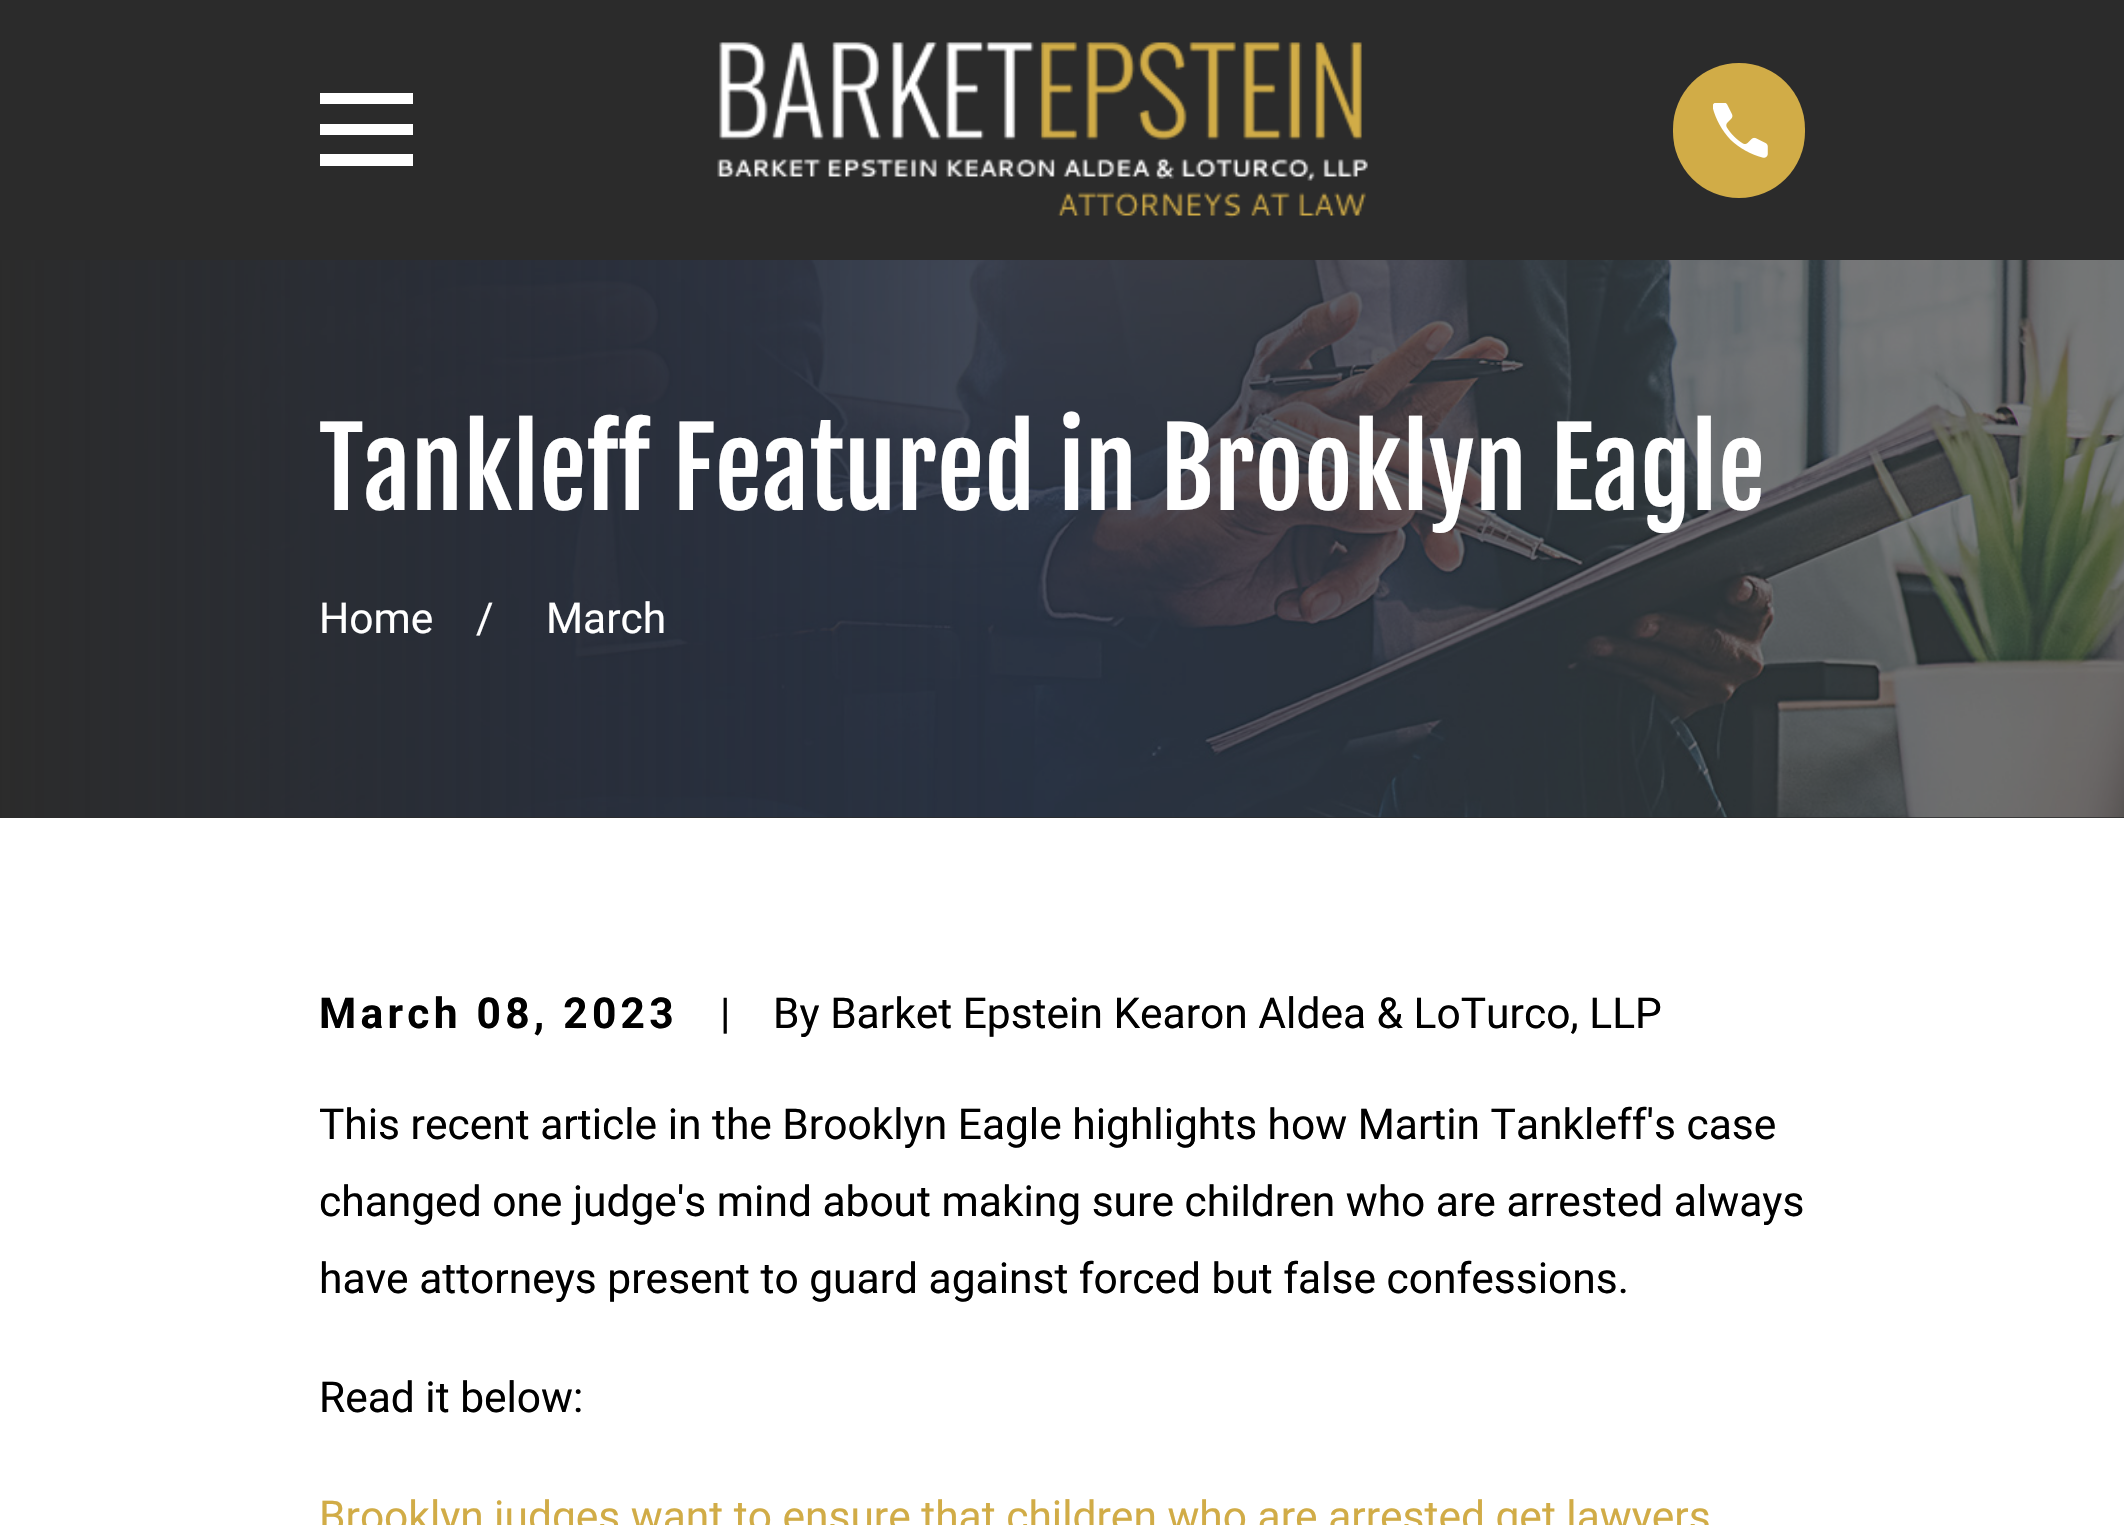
#include "include/core/SkBlurTypes.h"
#include "include/core/SkCanvas.h"
#include "include/core/SkData.h"
#include "include/core/SkFont.h"
#include "include/core/SkFontMgr.h"
#include "include/core/SkImage.h"
#include "include/core/SkMaskFilter.h"
#include "include/core/SkPaint.h"
#include "include/core/SkPathBuilder.h"
#include "include/core/SkTextBlob.h"
#include "include/effects/SkDashPathEffect.h"
#include "include/effects/SkGradientShader.h"
#include "include/utils/SkParsePath.h"

extern sk_sp<SkFontMgr> fontMgr;

static SkFont font(const char* family, int weight, float size, bool italic = false) {
    SkFontStyle style(weight, SkFontStyle::kNormal_Width,
        italic ? SkFontStyle::kItalic_Slant : SkFontStyle::kUpright_Slant);
    SkFont result(fontMgr->matchFamilyStyle(family, style), size);
    result.setSubpixel(true);
    return result;
}

static void drawLabel(SkCanvas* canvas, const char* s, float x, float y, const SkFont& font, SkColor color) {
    SkPaint ink(SkColor4f::FromColor(color));
    ink.setAntiAlias(true);
    canvas->drawString(s, x, y, font, ink);
}

static void drawTracked(SkCanvas* canvas, const char* s, float x, float y, const SkFont& font, const SkPaint& ink, float letter, float word) {
    std::vector<SkGlyphID> glyphs(font.countText(s, strlen(s), SkTextEncoding::kUTF8));
    std::vector<float> xs(glyphs.size());
    font.textToGlyphs(s, strlen(s), SkTextEncoding::kUTF8, glyphs);
    font.getXPos(glyphs, xs, x);
    float extra = 0;
    for (size_t i = 0; i < glyphs.size(); i++) {
        xs[i] += extra;
        extra += letter + word * (glyphs[i] == font.unicharToGlyph(' '));
    }
    canvas->drawTextBlob(SkTextBlob::MakeFromPosHGlyphs(glyphs, xs, y, font), 0, 0, ink);
}

static void fillRect(SkCanvas* canvas, float x, float y, float w, float h, SkColor color) {
    SkPaint ink(SkColor4f::FromColor(color));
    ink.setAntiAlias(true);
    canvas->drawRect(SkRect::MakeXYWH(x, y, w, h), ink);
}

static void fillRRect(SkCanvas* canvas, float x, float y, float w, float h, float radius, SkColor color) {
    SkPaint ink(SkColor4f::FromColor(color));
    ink.setAntiAlias(true);
    canvas->drawRoundRect(SkRect::MakeXYWH(x, y, w, h), radius, radius, ink);
}

static void drawPhoto(SkCanvas* canvas, const char* path, float x, float y, float w, float h) {
    auto image = SkImages::DeferredFromEncodedData(SkData::MakeFromFileName(path));
    canvas->drawImageRect(image, SkRect::MakeXYWH(x, y, w, h), SkSamplingOptions());
}

static SkPath parsePath(const char* data, bool evenOdd = false) {
    SkPath result = *SkParsePath::FromSVGString(data);
    if (evenOdd) result.setFillType(SkPathFillType::kEvenOdd);
    return result;
}

void draw(SkCanvas* canvas) {
    SkPaint paint;
    paint.setAntiAlias(true);
    canvas->clear(0xFFFFFFFF);
    fillRect(canvas, 0, 0, 2124, 260, 0xFF2B2B2B);
    canvas->save();
    canvas->clipRect(SkRect::MakeXYWH(320, 83, 93, 95));
    paint.setColor(0xFFFFFFFF);
    canvas->drawPath(parsePath("M320 93V104H414V93ZM320 124V135H414V124ZM320 154V166H414V154Z"), paint);
    canvas->restore();
    drawPhoto(canvas, "assets/img1.png", 717, 42, 651, 176);
    fillRRect(canvas, 1673, 63, 132, 135, 66, 0xFFD1AC47);
    drawPhoto(canvas, "assets/img2.png", 1713, 103, 55, 55);
    fillRect(canvas, 6, 260, 2118, 558, 0xFF2B2B2B);
    drawPhoto(canvas, "assets/img3.png", 6, 260, 2118, 558);
    {
        const SkColor colors[] = {0xFF2B2B2B, 0x002B2B2B, 0x00000000};
        const float stops[] = {0, 0.5f, 1};
        const SkPoint ends[] = {{0, 539}, {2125, 539}};
        paint.setShader(SkGradientShader::MakeLinear(ends, colors, stops, 3, SkTileMode::kClamp));
        paint.setAlpha(255);
    }
    canvas->drawRect(SkRect::MakeXYWH(0, 260, 1010, 558), paint);
    SkFont font1 = font("Fjalla One", 400, 106.25f);
    drawLabel(canvas, "Tankleff Featured in Brooklyn Eagle", 319, 510, font1, 0xFFFFFFFF);
    SkFont font2 = font("Roboto", 400, 42.5f);
    drawLabel(canvas, "Home", 319, 633, font2, 0xFFFFFFFF);
    drawLabel(canvas, "/", 476, 633, font2, 0xFFFFFFFF);
    drawLabel(canvas, "March", 546, 633, font2, 0xFFFFFFFF);
    SkFont font3 = font("Roboto", 700, 42.5f);
    paint.setShader(nullptr);
    paint.setColor(0xFF000000);
    drawTracked(canvas, "March 08, 2023", 319, 1028, font3, paint, 4.25f, 0);
    drawLabel(canvas, "|", 720, 1028, font2, 0xFF000000);
    drawLabel(canvas, "By Barket Epstein Kearon Aldea & LoTurco, LLP", 773, 1028, font2, 0xFF000000);
    drawLabel(canvas, "This recent article in the Brooklyn Eagle highlights how Martin Tankleff's case", 319, 1139, font2, 0xFF000000);
    drawLabel(canvas, "changed one judge's mind about making sure children who are arrested always", 319, 1216, font2, 0xFF000000);
    drawLabel(canvas, "have attorneys present to guard against forced but false confessions.", 319, 1293, font2, 0xFF000000);
    drawLabel(canvas, "Read it below:", 319, 1412, font2, 0xFF000000);
    drawLabel(canvas, "Brooklyn judges want to ensure that children who are arrested get lawyers", 319, 1531, font2, 0xFFD1AC47);
}
